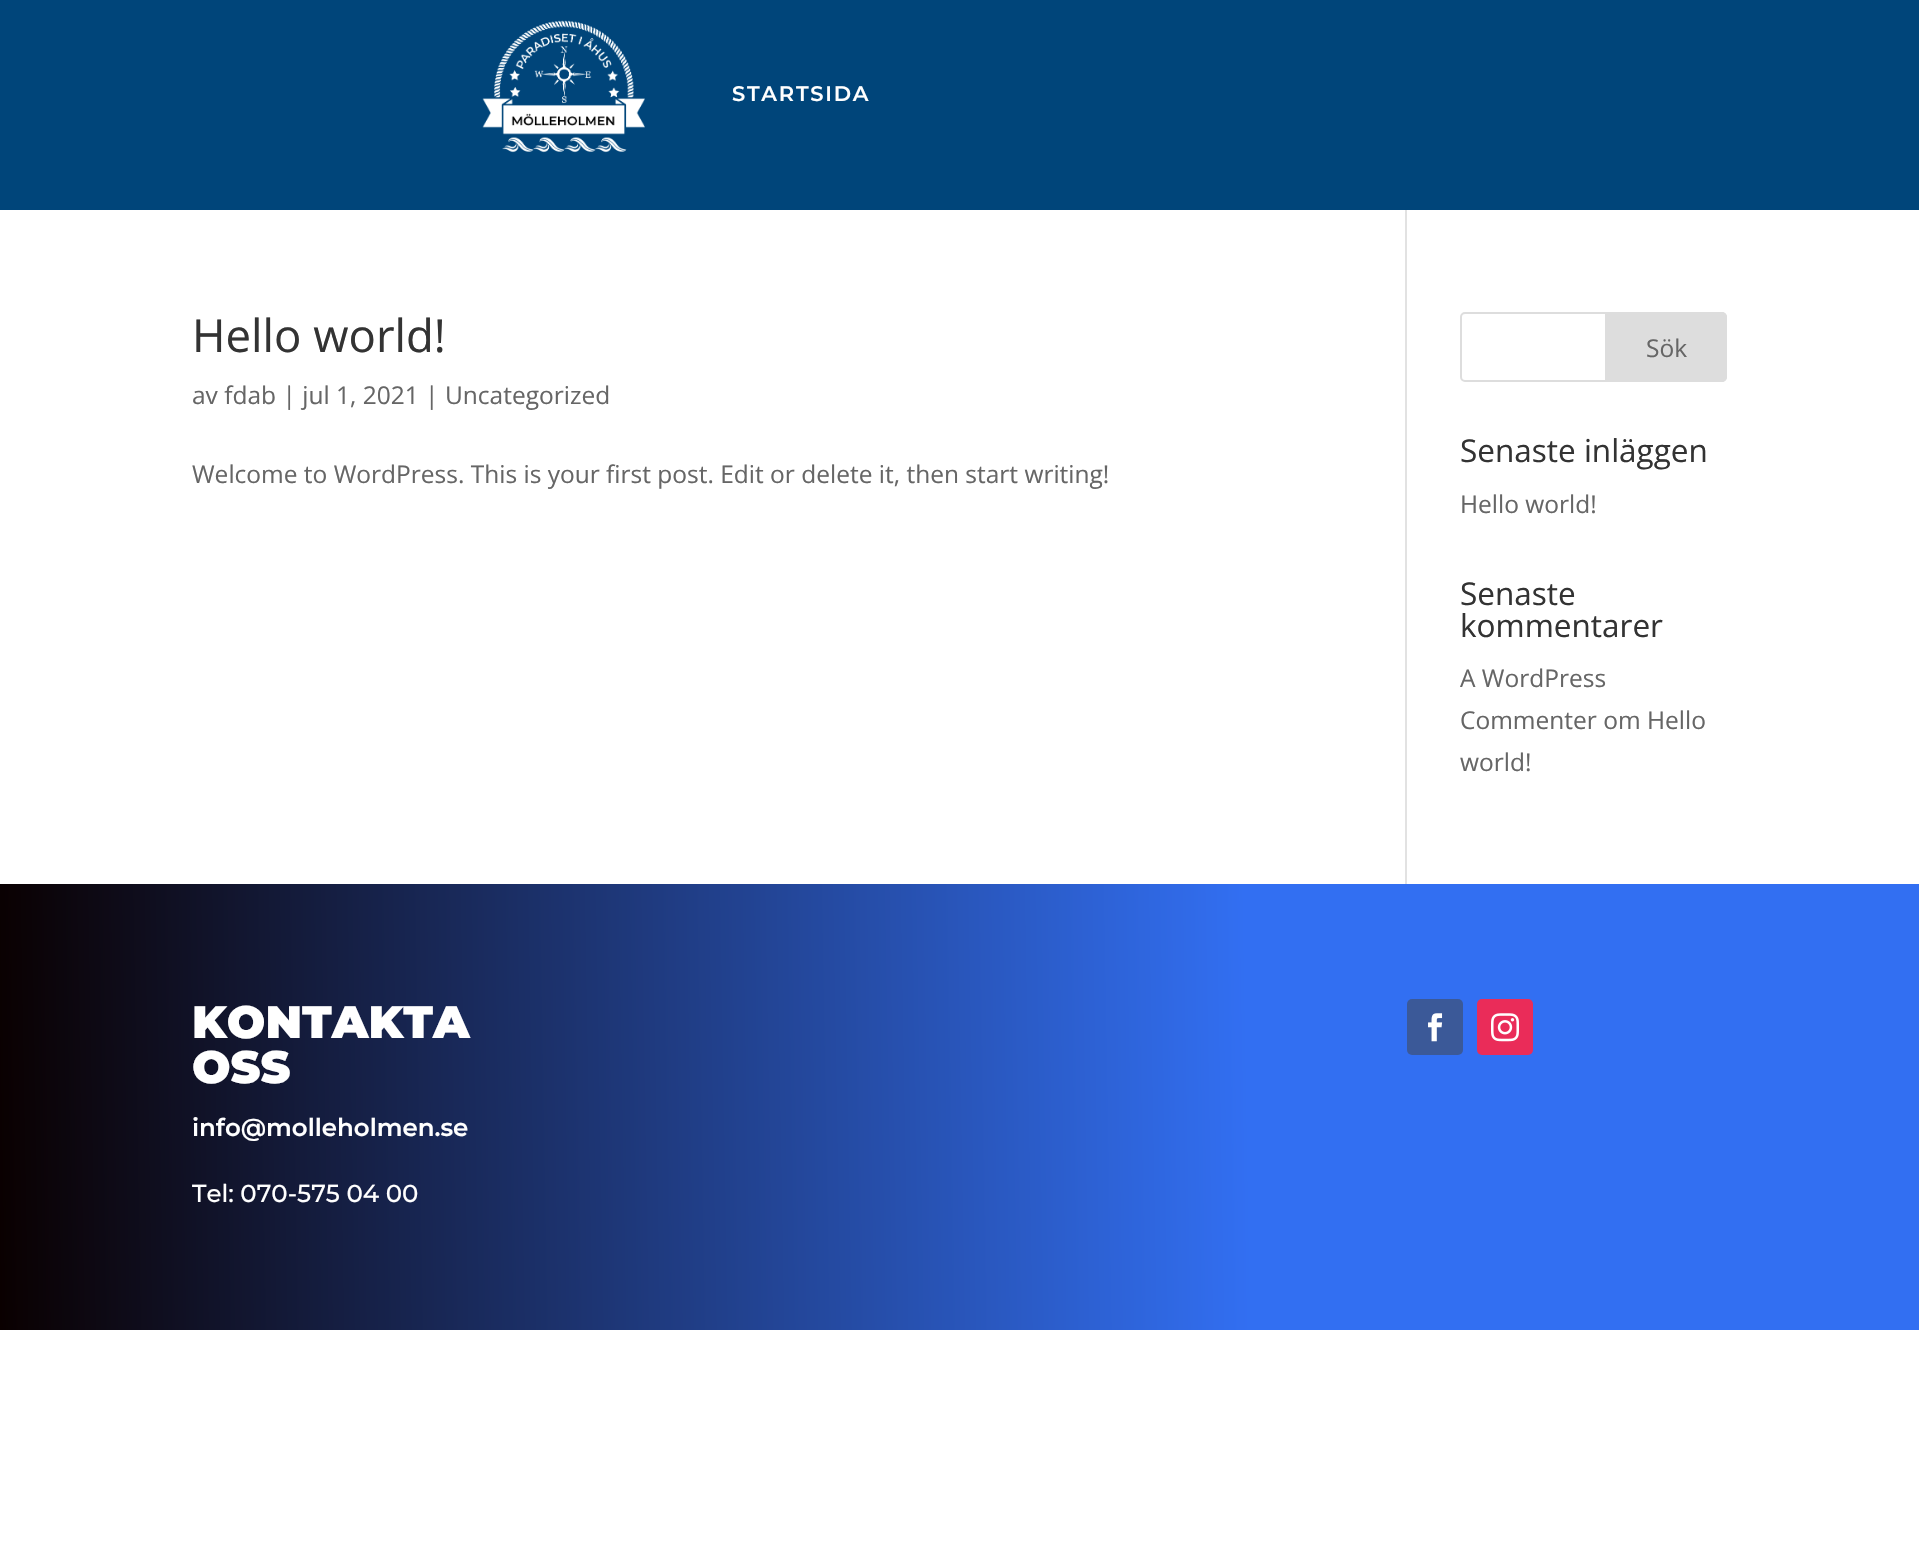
#include "include/core/SkBlurTypes.h"
#include "include/core/SkCanvas.h"
#include "include/core/SkData.h"
#include "include/core/SkFont.h"
#include "include/core/SkFontMgr.h"
#include "include/core/SkImage.h"
#include "include/core/SkMaskFilter.h"
#include "include/core/SkPaint.h"
#include "include/core/SkPathBuilder.h"
#include "include/core/SkTextBlob.h"
#include "include/effects/SkDashPathEffect.h"
#include "include/effects/SkGradientShader.h"
#include "include/utils/SkParsePath.h"

extern sk_sp<SkFontMgr> fontMgr;

static SkFont font(const char* family, int weight, float size, bool italic = false) {
    SkFontStyle style(weight, SkFontStyle::kNormal_Width,
        italic ? SkFontStyle::kItalic_Slant : SkFontStyle::kUpright_Slant);
    SkFont result(fontMgr->matchFamilyStyle(family, style), size);
    result.setSubpixel(true);
    return result;
}

static void drawLabel(SkCanvas* canvas, const char* s, float x, float y, const SkFont& font, SkColor color) {
    SkPaint ink(SkColor4f::FromColor(color));
    ink.setAntiAlias(true);
    canvas->drawString(s, x, y, font, ink);
}

static void drawTracked(SkCanvas* canvas, const char* s, float x, float y, const SkFont& font, const SkPaint& ink, float letter, float word) {
    std::vector<SkGlyphID> glyphs(font.countText(s, strlen(s), SkTextEncoding::kUTF8));
    std::vector<float> xs(glyphs.size());
    font.textToGlyphs(s, strlen(s), SkTextEncoding::kUTF8, glyphs);
    font.getXPos(glyphs, xs, x);
    float extra = 0;
    for (size_t i = 0; i < glyphs.size(); i++) {
        xs[i] += extra;
        extra += letter + word * (glyphs[i] == font.unicharToGlyph(' '));
    }
    canvas->drawTextBlob(SkTextBlob::MakeFromPosHGlyphs(glyphs, xs, y, font), 0, 0, ink);
}

static void fillRect(SkCanvas* canvas, float x, float y, float w, float h, SkColor color) {
    SkPaint ink(SkColor4f::FromColor(color));
    ink.setAntiAlias(true);
    canvas->drawRect(SkRect::MakeXYWH(x, y, w, h), ink);
}

static void fillRRect(SkCanvas* canvas, float x, float y, float w, float h, float radius, SkColor color) {
    SkPaint ink(SkColor4f::FromColor(color));
    ink.setAntiAlias(true);
    canvas->drawRoundRect(SkRect::MakeXYWH(x, y, w, h), radius, radius, ink);
}

static void drawPhoto(SkCanvas* canvas, const char* path, float x, float y, float w, float h) {
    auto image = SkImages::DeferredFromEncodedData(SkData::MakeFromFileName(path));
    canvas->drawImageRect(image, SkRect::MakeXYWH(x, y, w, h), SkSamplingOptions());
}

static SkPath parsePath(const char* data, bool evenOdd = false) {
    SkPath result = *SkParsePath::FromSVGString(data);
    if (evenOdd) result.setFillType(SkPathFillType::kEvenOdd);
    return result;
}

void draw(SkCanvas* canvas) {
    SkPaint paint;
    paint.setAntiAlias(true);
    canvas->clear(0xFFFFFFFF);
    fillRect(canvas, 0, 0, 1919, 210, 0xFF00457A);
    drawPhoto(canvas, "assets/img1.png", 482, 20, 163, 133);
    SkFont font1 = font("Montserrat", 600, 21);
    paint.setColor(0xFFFFFFFF);
    drawTracked(canvas, "STARTSIDA", 732, 101, font1, paint, 1.75f, 0);
    fillRect(canvas, 1405, 210, 2, 674, 0xFFE2E2E2);
    SkFont font2 = font("Open Sans", 400, 45.5f);
    drawLabel(canvas, "Hello world!", 192, 352, font2, 0xFF333333);
    SkFont font3 = font("Open Sans", 400, 24.5f);
    drawLabel(canvas, "av fdab | jul 1, 2021 | Uncategorized", 192, 404, font3, 0xFF666666);
    drawLabel(canvas, "Welcome to WordPress. This is your first post. Edit or delete it, then start writing!", 192, 483, font3, 0xFF666666);
    paint.setStroke(true);
    paint.setStrokeWidth(2);
    paint.setColor(0xFFDDDDDD);
    canvas->drawRoundRect(SkRect::MakeXYWH(1461, 313, 265, 68), 4, 4, paint);
    paint.setStroke(false);
    canvas->drawPath(parsePath("M1606 313H1722C1724 313 1726 315 1726 317V377C1726 379 1724 381 1722 381H1606Z"), paint);
    paint.setStroke(true);
    canvas->drawPath(parsePath("M1606 313H1722C1724 313 1726 315 1726 317V377C1726 379 1724 381 1722 381H1606Z"), paint);
    drawLabel(canvas, "Sök", 1646, 357, font3, 0xFF666666);
    SkFont font4 = font("Open Sans", 400, 31.5f);
    drawLabel(canvas, "Senaste inläggen", 1460, 462, font4, 0xFF333333);
    drawLabel(canvas, "Hello world!", 1460, 513, font3, 0xFF666666);
    drawLabel(canvas, "Senaste", 1460, 605, font4, 0xFF333333);
    drawLabel(canvas, "kommentarer", 1460, 637, font4, 0xFF333333);
    drawLabel(canvas, "A WordPress", 1460, 687, font3, 0xFF666666);
    drawLabel(canvas, "Commenter om Hello", 1460, 729, font3, 0xFF666666);
    drawLabel(canvas, "world!", 1460, 771, font3, 0xFF666666);
    paint.setStroke(false);
    {
        const SkColor colors[] = {0xFF0A0000, 0xFF326FF2};
        const float stops[] = {0, 0.65f};
        const SkPoint ends[] = {{-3.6f, 1124}, {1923, 1090}};
        paint.setShader(SkGradientShader::MakeLinear(ends, colors, stops, 2, SkTileMode::kClamp));
        paint.setAlpha(255);
    }
    canvas->drawRect(SkRect::MakeXYWH(0, 884, 1919, 446), paint);
    SkFont font5 = font("Montserrat", 900, 45.5f);
    drawLabel(canvas, "KONTAKTA", 192, 1038, font5, 0xFFFFFFFF);
    drawLabel(canvas, "OSS", 192, 1083, font5, 0xFFFFFFFF);
    SkFont font6 = font("Montserrat", 600, 24.5f);
    drawLabel(canvas, "info@molleholmen.se", 192, 1136, font6, 0xFFFFFFFF);
    SkFont font7 = font("Montserrat", 500, 24.5f);
    drawLabel(canvas, "Tel: 070-575 04 00", 192, 1202, font7, 0xFFFFFFFF);
    fillRRect(canvas, 1407, 999, 56, 56, 5, 0xFF3B5998);
    drawPhoto(canvas, "assets/img2.png", 1428, 1013, 15, 29);
    fillRRect(canvas, 1477, 999, 56, 56, 5, 0xFFEA2C59);
    drawPhoto(canvas, "assets/img3.png", 1491, 1013, 28, 29);
}
